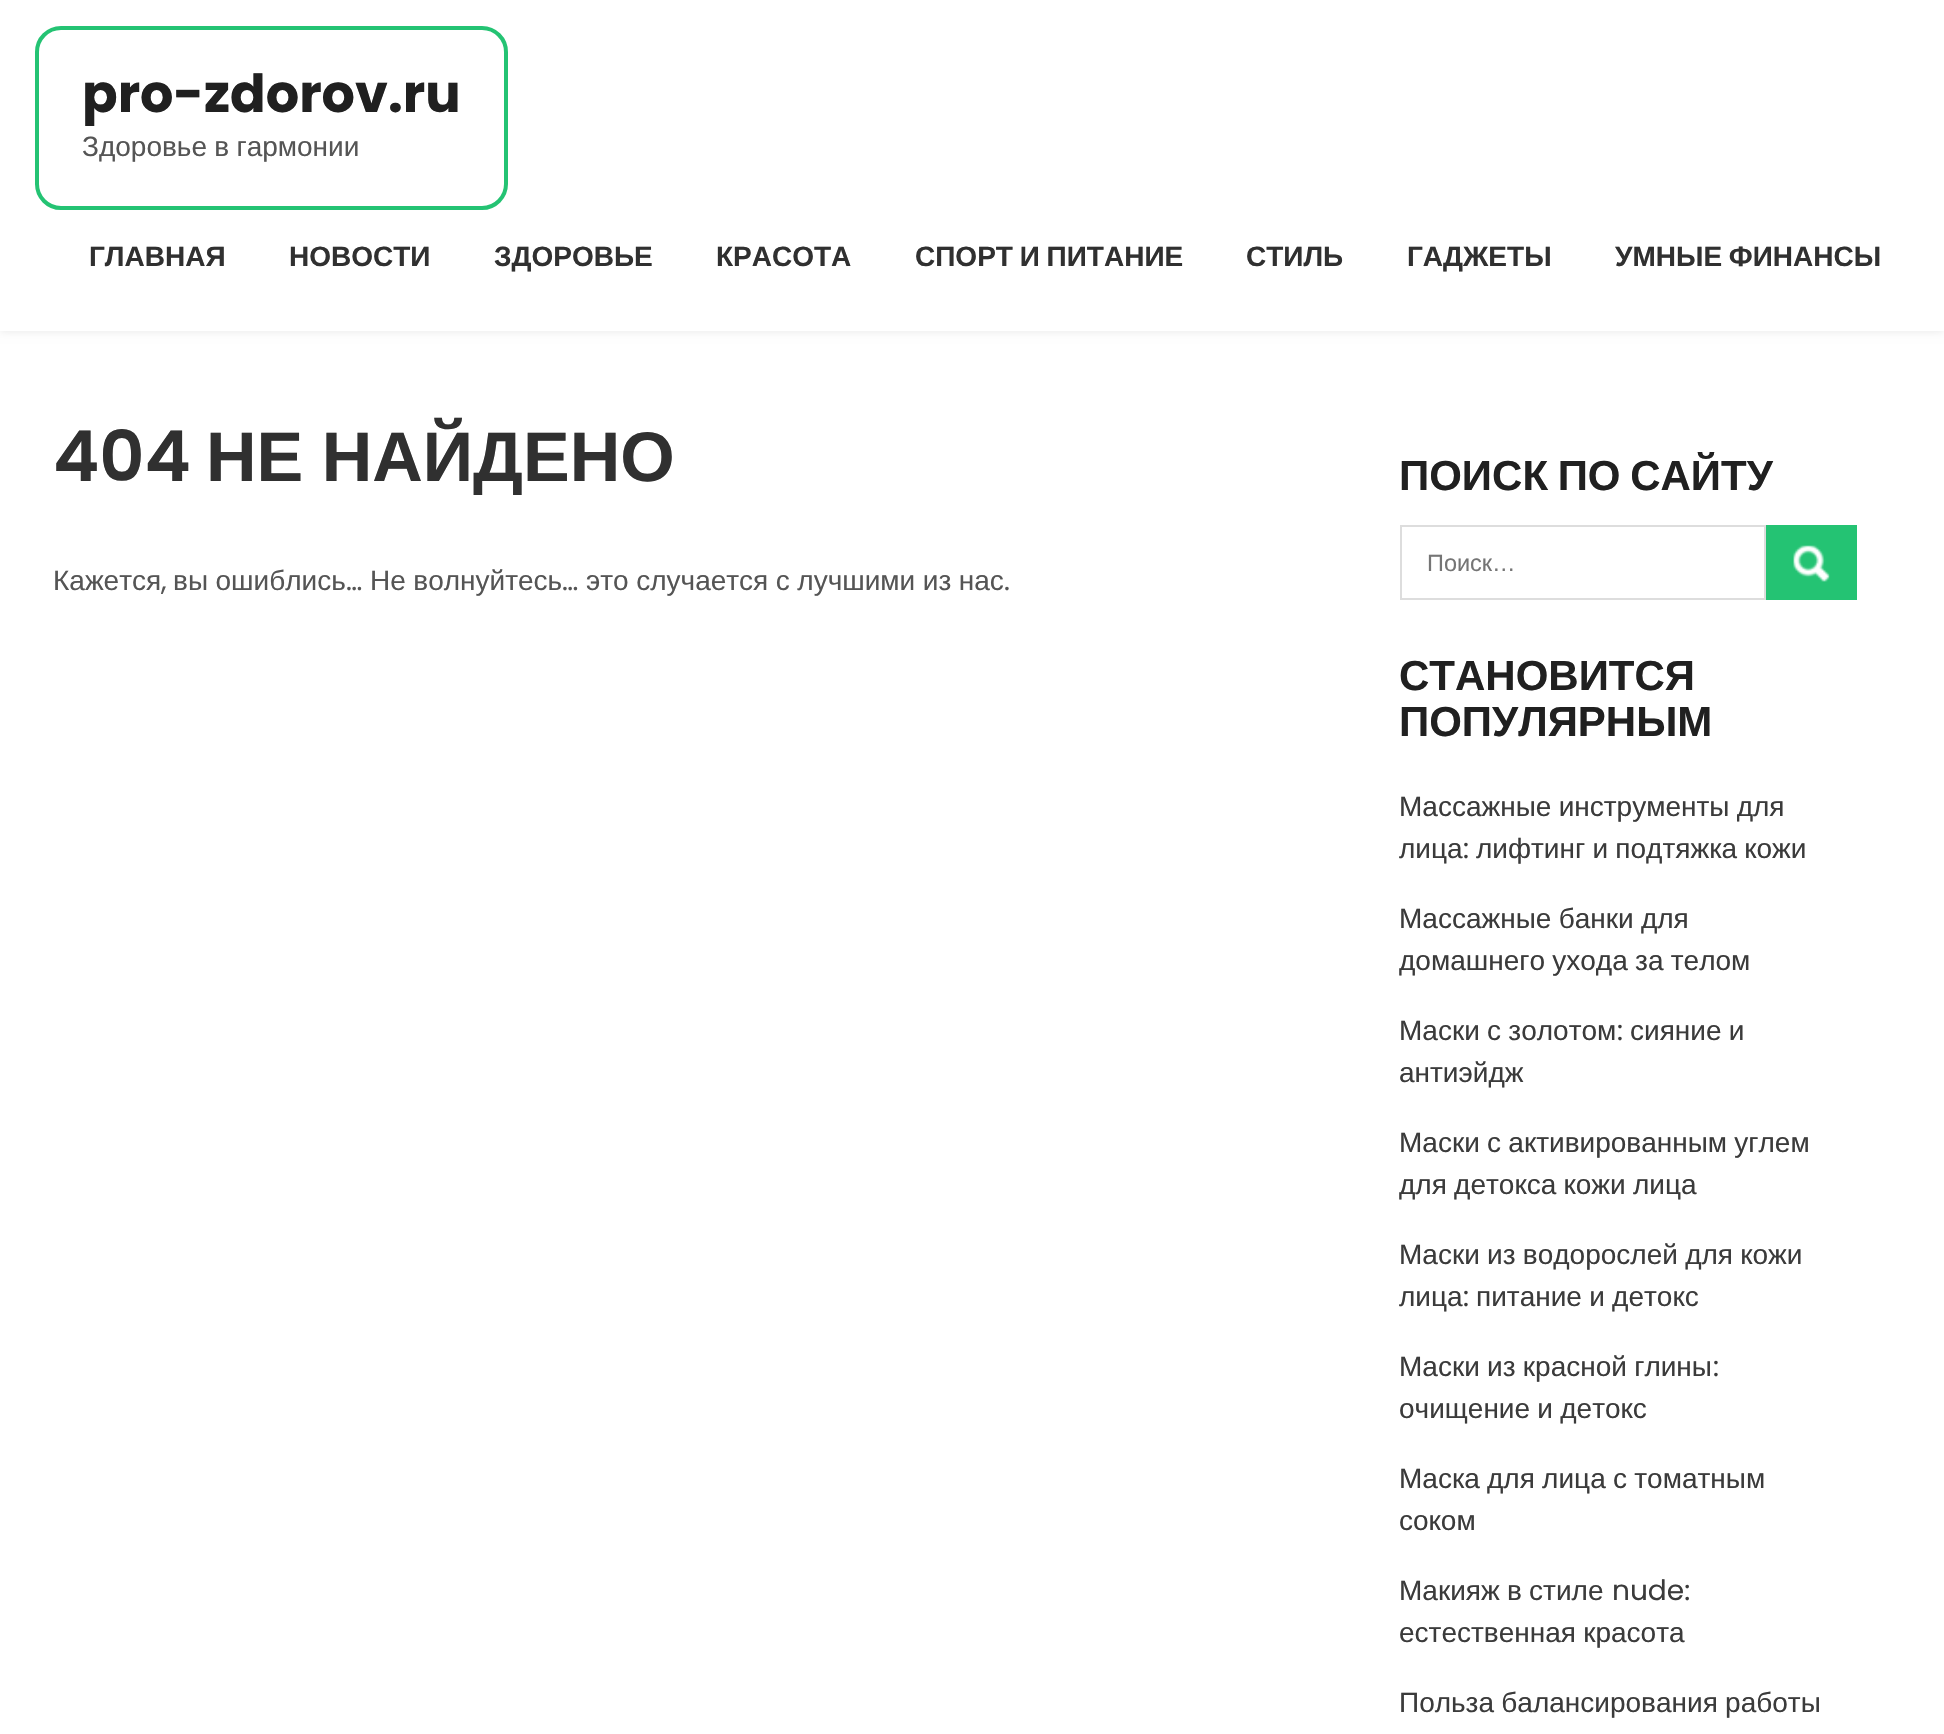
#include "include/core/SkBlurTypes.h"
#include "include/core/SkCanvas.h"
#include "include/core/SkData.h"
#include "include/core/SkFont.h"
#include "include/core/SkFontMgr.h"
#include "include/core/SkImage.h"
#include "include/core/SkMaskFilter.h"
#include "include/core/SkPaint.h"
#include "include/core/SkPathBuilder.h"
#include "include/core/SkTextBlob.h"
#include "include/effects/SkDashPathEffect.h"
#include "include/effects/SkGradientShader.h"
#include "include/utils/SkParsePath.h"

extern sk_sp<SkFontMgr> fontMgr;

static SkFont font(const char* family, int weight, float size, bool italic = false) {
    SkFontStyle style(weight, SkFontStyle::kNormal_Width,
        italic ? SkFontStyle::kItalic_Slant : SkFontStyle::kUpright_Slant);
    SkFont result(fontMgr->matchFamilyStyle(family, style), size);
    result.setSubpixel(true);
    return result;
}

static void drawLabel(SkCanvas* canvas, const char* s, float x, float y, const SkFont& font, SkColor color) {
    SkPaint ink(SkColor4f::FromColor(color));
    ink.setAntiAlias(true);
    canvas->drawString(s, x, y, font, ink);
}

static void drawTracked(SkCanvas* canvas, const char* s, float x, float y, const SkFont& font, const SkPaint& ink, float letter, float word) {
    std::vector<SkGlyphID> glyphs(font.countText(s, strlen(s), SkTextEncoding::kUTF8));
    std::vector<float> xs(glyphs.size());
    font.textToGlyphs(s, strlen(s), SkTextEncoding::kUTF8, glyphs);
    font.getXPos(glyphs, xs, x);
    float extra = 0;
    for (size_t i = 0; i < glyphs.size(); i++) {
        xs[i] += extra;
        extra += letter + word * (glyphs[i] == font.unicharToGlyph(' '));
    }
    canvas->drawTextBlob(SkTextBlob::MakeFromPosHGlyphs(glyphs, xs, y, font), 0, 0, ink);
}

static void fillRect(SkCanvas* canvas, float x, float y, float w, float h, SkColor color) {
    SkPaint ink(SkColor4f::FromColor(color));
    ink.setAntiAlias(true);
    canvas->drawRect(SkRect::MakeXYWH(x, y, w, h), ink);
}

static void drawPhoto(SkCanvas* canvas, const char* path, float x, float y, float w, float h) {
    auto image = SkImages::DeferredFromEncodedData(SkData::MakeFromFileName(path));
    canvas->drawImageRect(image, SkRect::MakeXYWH(x, y, w, h), SkSamplingOptions());
}

static SkPath parsePath(const char* data, bool evenOdd = false) {
    SkPath result = *SkParsePath::FromSVGString(data);
    if (evenOdd) result.setFillType(SkPathFillType::kEvenOdd);
    return result;
}

void draw(SkCanvas* canvas) {
    SkPaint paint;
    paint.setAntiAlias(true);
    canvas->clear(0xFFFFFFFF);
    canvas->save();
    canvas->clipPath(parsePath("M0 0H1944V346H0ZM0 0H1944V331H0Z", true), true);
    paint.setColor(0xFFE7E7E7);
    paint.setMaskFilter(SkMaskFilter::MakeBlur(kNormal_SkBlurStyle, 4.5f));
    canvas->drawRect(SkRect::MakeXYWH(0, 0, 1944, 331), paint);
    paint.setMaskFilter(nullptr);
    canvas->restore();
    paint.setStroke(true);
    paint.setStrokeWidth(4);
    paint.setColor(0xFF24C373);
    canvas->drawRoundRect(SkRect::MakeXYWH(37, 28, 469, 180), 24, 24, paint);
    SkFont font1 = font("Poppins", 700, 52.5f);
    drawLabel(canvas, "pro-zdorov.ru", 82, 112, font1, 0xFF202020);
    SkFont font2 = font("Liberation Sans", 400, 28);
    paint.setStroke(false);
    paint.setColor(0xFF555555);
    drawTracked(canvas, "Здоровье в гармонии", 82, 156, font2, paint, 0, -0.5f);
    SkFont font3 = font("Liberation Sans", 700, 28);
    drawLabel(canvas, "ГЛАВНАЯ", 89, 266, font3, 0xFF303030);
    drawLabel(canvas, "НОВОСТИ", 289, 266, font3, 0xFF303030);
    drawLabel(canvas, "ЗДОРОВЬЕ", 494, 266, font3, 0xFF303030);
    drawLabel(canvas, "КРАСОТА", 716, 266, font3, 0xFF303030);
    paint.setColor(0xFF303030);
    drawTracked(canvas, "СПОРТ И ПИТАНИЕ", 915, 266, font3, paint, 0, -1);
    drawLabel(canvas, "СТИЛЬ", 1246, 266, font3, 0xFF303030);
    drawLabel(canvas, "ГАДЖЕТЫ", 1407, 266, font3, 0xFF303030);
    drawTracked(canvas, "УМНЫЕ ФИНАНСЫ", 1615, 266, font3, paint, 0, -1);
    SkFont font4 = font("Poppins", 600, 70);
    drawLabel(canvas, "404", 53, 481, font4, 0xFF303030);
    SkFont font5 = font("Liberation Sans", 700, 70);
    drawTracked(canvas, "НЕ НАЙДЕНО", 206, 481, font5, paint, 0, -1);
    drawLabel(canvas, "Кажется", 53, 590, font2, 0xFF555555);
    SkFont font6 = font("Poppins", 400, 28);
    drawLabel(canvas, ",", 161, 590, font6, 0xFF555555);
    paint.setColor(0xFF555555);
    drawTracked(canvas, "вы ошиблись", 173, 590, font2, paint, 0, -0.25f);
    drawLabel(canvas, "…", 346, 590, font6, 0xFF555555);
    drawTracked(canvas, "Не волнуйтесь", 370, 590, font2, paint, 0, -0.25f);
    drawLabel(canvas, "…", 562, 590, font6, 0xFF555555);
    drawTracked(canvas, "это случается с лучшими из нас", 586, 590, font2, paint, 0, -0.25f);
    drawLabel(canvas, ".", 1004, 590, font6, 0xFF555555);
    SkFont font7 = font("Liberation Sans", 700, 42);
    paint.setColor(0xFF202020);
    drawTracked(canvas, "ПОИСК ПО САЙТУ", 1399, 490, font7, paint, 0, -2);
    paint.setStroke(true);
    paint.setStrokeWidth(2);
    paint.setColor(0xFFDDDDDD);
    canvas->drawRect(SkRect::MakeXYWH(1401, 526, 364, 73), paint);
    SkFont font8 = font("Liberation Sans", 400, 23.5f);
    drawLabel(canvas, "Поиск…", 1427, 571, font8, 0xFF757575);
    fillRect(canvas, 1766, 525, 91, 75, 0xFF24C373);
    drawPhoto(canvas, "assets/img1.png", 1793, 545, 37, 37);
    drawLabel(canvas, "СТАНОВИТСЯ", 1399, 690, font7, 0xFF202020);
    drawLabel(canvas, "ПОПУЛЯРНЫМ", 1399, 736, font7, 0xFF202020);
    paint.setStroke(false);
    paint.setColor(0xFF3B3B3B);
    drawTracked(canvas, "Массажные инструменты для", 1399, 816, font2, paint, 0, -0.5f);
    drawLabel(canvas, "лица", 1399, 858, font2, 0xFF3B3B3B);
    drawLabel(canvas, ":", 1463, 858, font6, 0xFF3B3B3B);
    drawTracked(canvas, "лифтинг и подтяжка кожи", 1476, 858, font2, paint, 0, -0.5f);
    drawTracked(canvas, "Массажные банки для", 1399, 928, font2, paint, 0, -0.5f);
    drawTracked(canvas, "домашнего ухода за телом", 1399, 970, font2, paint, 0, -0.5f);
    drawTracked(canvas, "Маски с золотом", 1399, 1040, font2, paint, 0, -0.5f);
    drawLabel(canvas, ":", 1617, 1040, font6, 0xFF3B3B3B);
    drawTracked(canvas, "сияние и", 1630, 1040, font2, paint, 0, -0.5f);
    drawLabel(canvas, "антиэйдж", 1399, 1082, font2, 0xFF3B3B3B);
    drawTracked(canvas, "Маски с активированным углем", 1399, 1152, font2, paint, 0, -0.5f);
    drawTracked(canvas, "для детокса кожи лица", 1399, 1194, font2, paint, 0, -0.5f);
    drawTracked(canvas, "Маски из водорослей для кожи", 1399, 1264, font2, paint, 0, -0.5f);
    drawLabel(canvas, "лица", 1399, 1306, font2, 0xFF3B3B3B);
    drawLabel(canvas, ":", 1463, 1306, font6, 0xFF3B3B3B);
    drawTracked(canvas, "питание и детокс", 1476, 1306, font2, paint, 0, -0.5f);
    drawTracked(canvas, "Маски из красной глины", 1399, 1376, font2, paint, 0, -0.5f);
    drawLabel(canvas, ":", 1713, 1376, font6, 0xFF3B3B3B);
    drawTracked(canvas, "очищение и детокс", 1399, 1418, font2, paint, 0, -0.5f);
    drawTracked(canvas, "Маска для лица с томатным", 1399, 1488, font2, paint, 0, -0.5f);
    drawLabel(canvas, "соком", 1399, 1530, font2, 0xFF3B3B3B);
    drawTracked(canvas, "Макияж в стиле", 1399, 1600, font2, paint, 0, -0.5f);
    drawLabel(canvas, "nude:", 1612, 1600, font6, 0xFF3B3B3B);
    drawTracked(canvas, "естественная красота", 1399, 1642, font2, paint, 0, -0.5f);
    drawTracked(canvas, "Польза балансирования работы", 1399, 1712, font2, paint, 0, -0.5f);
}
